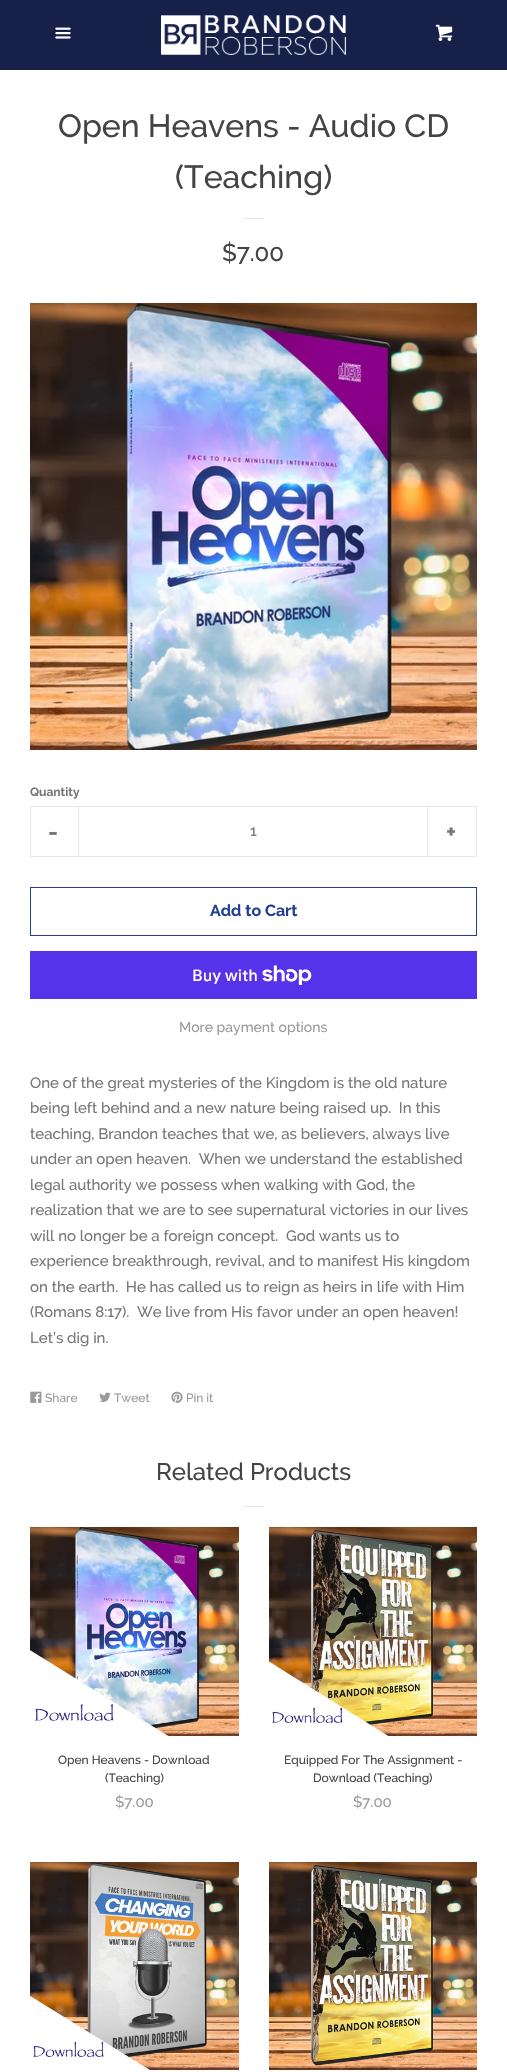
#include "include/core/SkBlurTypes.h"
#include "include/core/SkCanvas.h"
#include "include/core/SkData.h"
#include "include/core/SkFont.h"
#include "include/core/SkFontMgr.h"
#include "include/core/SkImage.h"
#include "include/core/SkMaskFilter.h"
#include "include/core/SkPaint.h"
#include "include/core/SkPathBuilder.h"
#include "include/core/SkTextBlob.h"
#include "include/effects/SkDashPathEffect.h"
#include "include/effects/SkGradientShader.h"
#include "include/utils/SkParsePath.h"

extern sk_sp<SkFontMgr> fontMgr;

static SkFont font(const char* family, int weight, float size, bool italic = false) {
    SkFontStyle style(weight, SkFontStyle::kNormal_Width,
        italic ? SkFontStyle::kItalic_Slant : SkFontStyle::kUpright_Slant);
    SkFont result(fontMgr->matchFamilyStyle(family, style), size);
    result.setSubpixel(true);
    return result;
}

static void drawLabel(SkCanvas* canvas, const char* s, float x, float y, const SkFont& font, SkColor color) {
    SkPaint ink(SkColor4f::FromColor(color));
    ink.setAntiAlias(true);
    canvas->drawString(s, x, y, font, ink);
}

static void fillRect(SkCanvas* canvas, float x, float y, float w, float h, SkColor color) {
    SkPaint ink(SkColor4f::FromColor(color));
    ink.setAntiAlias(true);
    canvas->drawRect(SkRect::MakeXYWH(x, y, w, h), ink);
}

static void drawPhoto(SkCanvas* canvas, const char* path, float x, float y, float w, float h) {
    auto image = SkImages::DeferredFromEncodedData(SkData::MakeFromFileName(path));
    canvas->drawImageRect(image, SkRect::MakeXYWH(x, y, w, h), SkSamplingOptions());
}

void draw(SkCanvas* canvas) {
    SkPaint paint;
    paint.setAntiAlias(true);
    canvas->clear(0xFF162049);
    drawPhoto(canvas, "assets/img1.png", 55, 27, 16, 12);
    drawPhoto(canvas, "assets/img2.png", 161, 15, 185, 40);
    drawPhoto(canvas, "assets/img3.png", 435, 24, 18, 17);
    fillRect(canvas, 0, 70, 507, 2002, 0xFFFFFFFF);
    SkFont font1 = font("Raleway", 500, 32);
    drawLabel(canvas, "Open Heavens - Audio CD", 58, 137, font1, 0xFF444444);
    drawLabel(canvas, "(Teaching)", 175, 188, font1, 0xFF444444);
    fillRect(canvas, 244, 218, 20, 1, 0xFFE7E7E7);
    SkFont font2 = font("Raleway", 500, 24);
    drawLabel(canvas, "$7.00", 222, 261, font2, 0xFF444444);
    drawPhoto(canvas, "assets/img4.png", 30, 303, 447, 447);
    SkFont font3 = font("Raleway", 700, 12);
    drawLabel(canvas, "Quantity", 30, 796, font3, 0xFF777777);
    paint.setStroke(true);
    paint.setStrokeWidth(1);
    paint.setColor(0xFFE7E7E7);
    canvas->drawRect(SkRect::MakeXYWH(30.5f, 806.5f, 446, 50), paint);
    fillRect(canvas, 78, 806, 1, 51, 0xFFE7E7E7);
    SkFont font4 = font("Raleway", 700, 24);
    drawLabel(canvas, "-", 48, 840, font4, 0xFF777777);
    SkFont font5 = font("Raleway", 500, 15);
    drawLabel(canvas, "1", 250, 836, font5, 0xFF777777);
    fillRect(canvas, 427, 806, 1, 51, 0xFFE7E7E7);
    drawLabel(canvas, "+", 446, 840, font4, 0xFF777777);
    paint.setColor(0xFF203F95);
    canvas->drawRect(SkRect::MakeXYWH(30.5f, 887.5f, 446, 48), paint);
    SkFont font6 = font("Raleway", 700, 16);
    drawLabel(canvas, "Add to Cart", 210, 916, font6, 0xFF203F95);
    fillRect(canvas, 30, 951, 447, 48, 0xFF5433EB);
    SkFont font7 = font("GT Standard", 500, 16);
    drawLabel(canvas, "Buy with", 192, 981, font7, 0xFFFFFFFF);
    drawPhoto(canvas, "assets/img5.png", 262, 965, 50, 20);
    SkFont font8 = font("Raleway", 500, 14);
    drawLabel(canvas, "More payment options", 179, 1032, font8, 0xFF9D9A99);
    drawLabel(canvas, "One of the great mysteries of the Kingdom is the old nature", 30, 1088, font5, 0xFF777777);
    drawLabel(canvas, "being left behind and a new nature being raised up.  In this", 30, 1113, font5, 0xFF777777);
    drawLabel(canvas, "teaching, Brandon teaches that we, as believers, always live", 30, 1139, font5, 0xFF777777);
    drawLabel(canvas, "under an open heaven.  When we understand the established", 30, 1164, font5, 0xFF777777);
    drawLabel(canvas, "legal authority we possess when walking with God, the", 30, 1190, font5, 0xFF777777);
    drawLabel(canvas, "realization that we are to see supernatural victories in our lives", 30, 1215, font5, 0xFF777777);
    drawLabel(canvas, "will no longer be a foreign concept.  God wants us to", 30, 1241, font5, 0xFF777777);
    drawLabel(canvas, "experience breakthrough, revival, and to manifest His kingdom", 30, 1266, font5, 0xFF777777);
    drawLabel(canvas, "on the earth.  He has called us to reign as heirs in life with Him", 30, 1292, font5, 0xFF777777);
    drawLabel(canvas, "(Romans 8:17).  We live from His favor under an open heaven!", 30, 1317, font5, 0xFF777777);
    drawLabel(canvas, "Let’s dig in.", 30, 1343, font5, 0xFF777777);
    drawPhoto(canvas, "assets/img6.png", 30, 1391, 12, 12);
    SkFont font9 = font("Raleway", 500, 12);
    drawLabel(canvas, "Share", 45, 1402, font9, 0xFF9D9A99);
    drawPhoto(canvas, "assets/img7.png", 99, 1392, 12, 10);
    drawLabel(canvas, "Tweet", 114, 1402, font9, 0xFF9D9A99);
    drawPhoto(canvas, "assets/img8.png", 171, 1391, 12, 12);
    drawLabel(canvas, "Pin it", 186, 1402, font9, 0xFF9D9A99);
    drawLabel(canvas, "Related Products", 156, 1480, font2, 0xFF444444);
    fillRect(canvas, 244, 1506, 20, 1, 0xFFE7E7E7);
    drawPhoto(canvas, "assets/img9.png", 30, 1527, 209, 209);
    drawLabel(canvas, "Open Heavens - Download", 58, 1764, font9, 0xFF444444);
    drawLabel(canvas, "(Teaching)", 105, 1782, font9, 0xFF444444);
    drawLabel(canvas, "$7.00", 115, 1807, font5, 0xFF9D9A99);
    drawPhoto(canvas, "assets/img10.png", 269, 1527, 208, 209);
    drawLabel(canvas, "Equipped For The Assignment -", 284, 1764, font9, 0xFF444444);
    drawLabel(canvas, "Download (Teaching)", 313, 1782, font9, 0xFF444444);
    drawLabel(canvas, "$7.00", 353, 1807, font5, 0xFF9D9A99);
    drawPhoto(canvas, "assets/img11.png", 30, 1862, 209, 208);
    drawPhoto(canvas, "assets/img12.png", 269, 1862, 208, 208);
}
